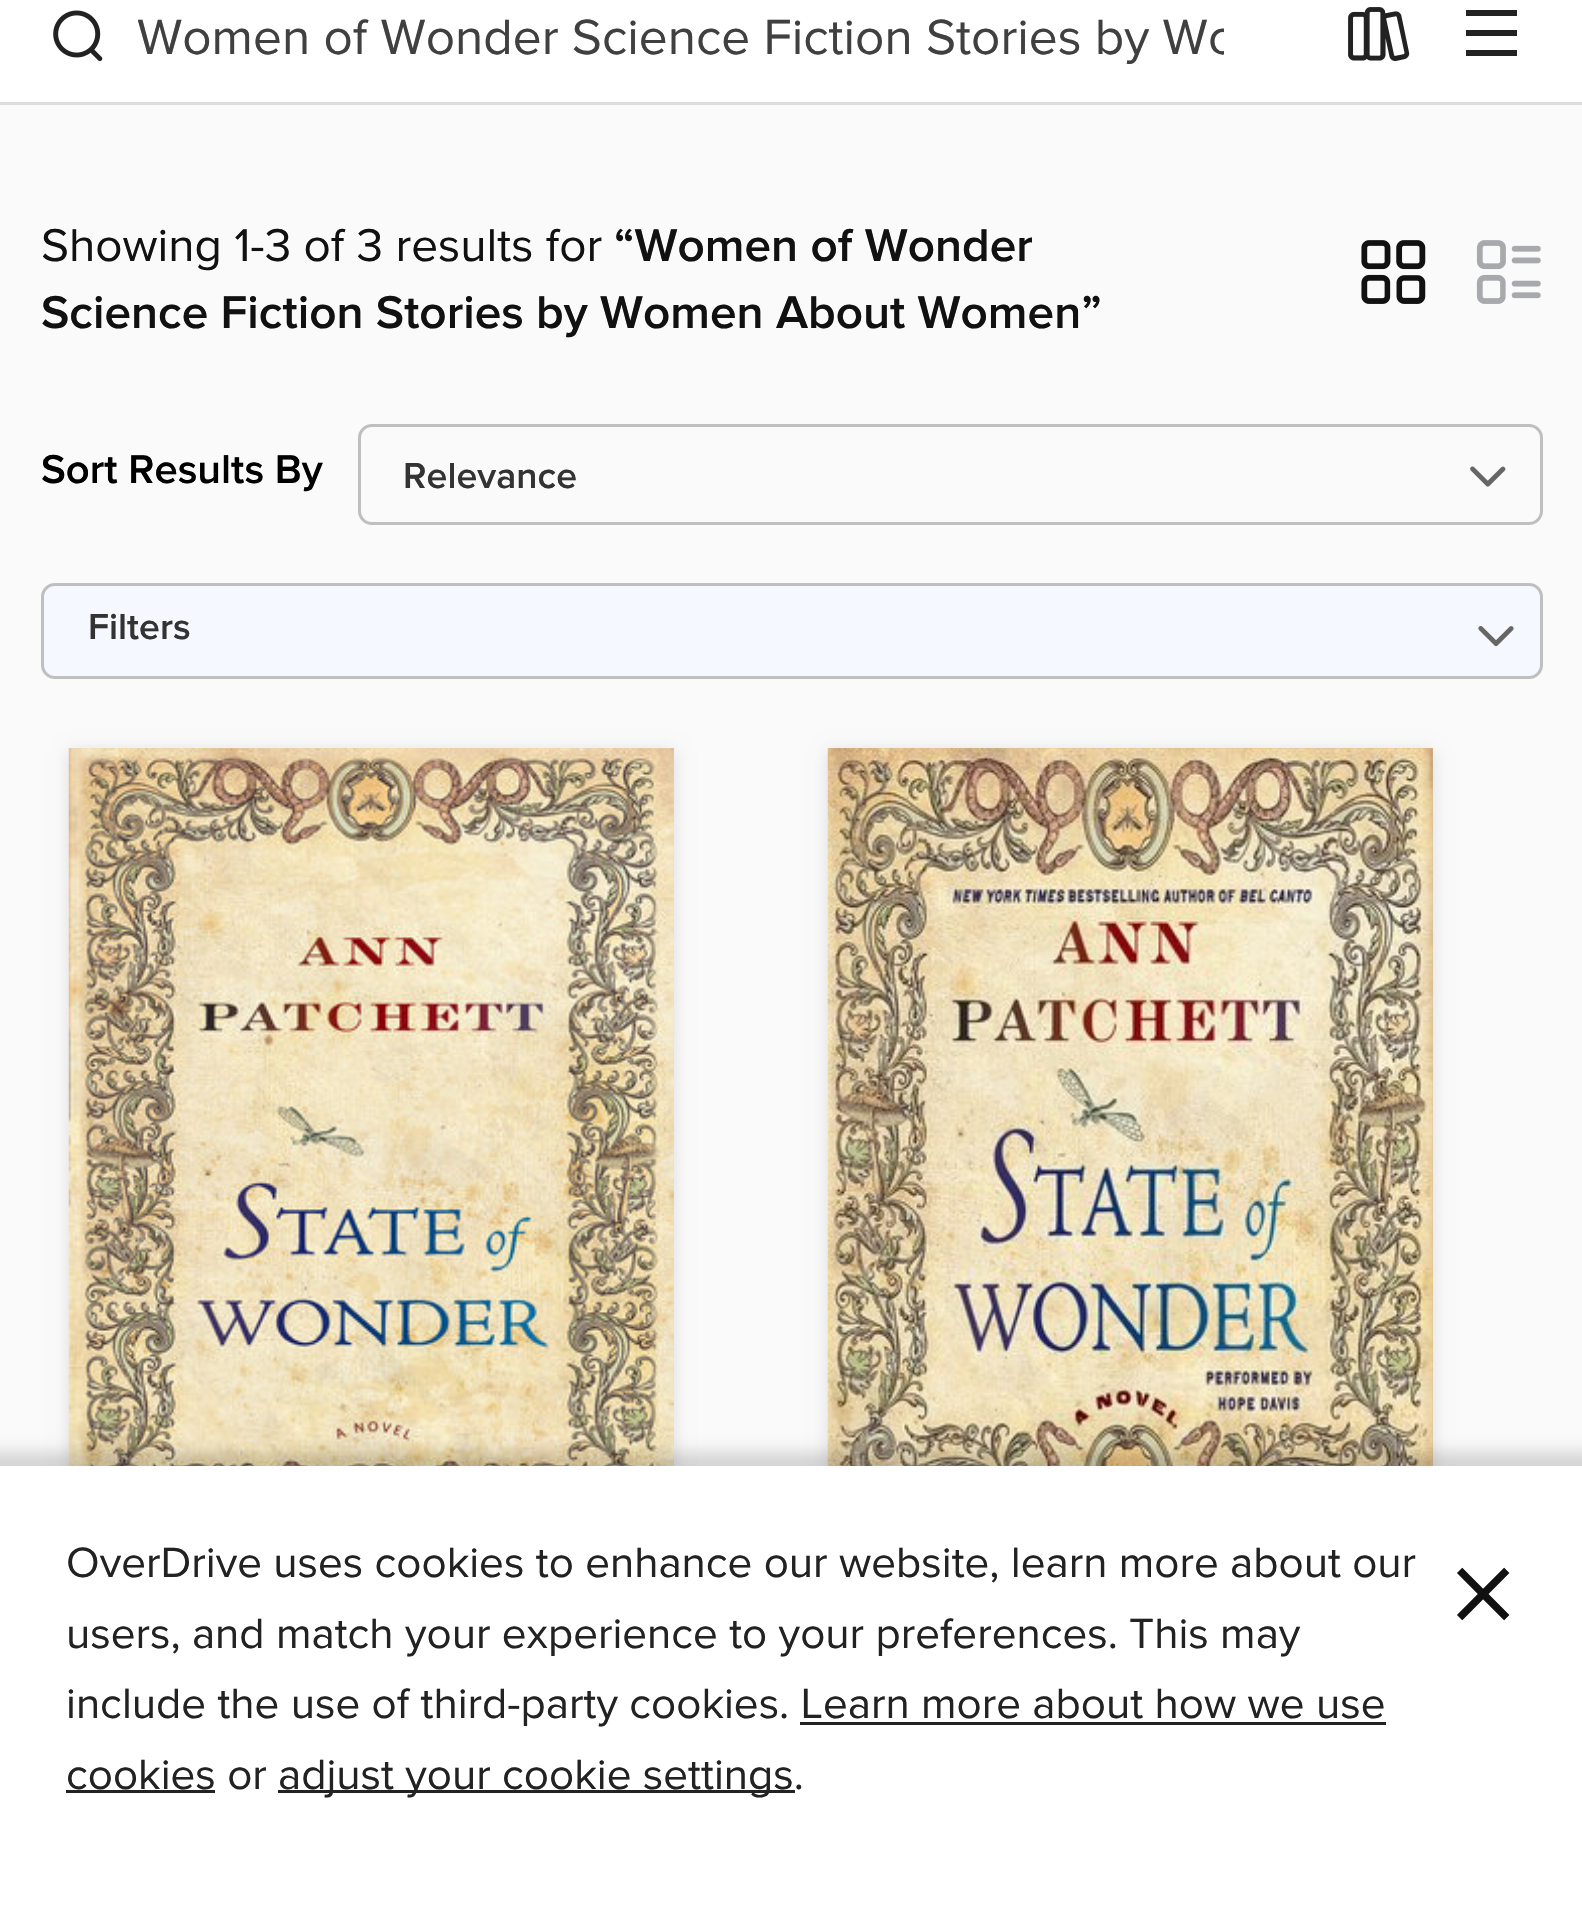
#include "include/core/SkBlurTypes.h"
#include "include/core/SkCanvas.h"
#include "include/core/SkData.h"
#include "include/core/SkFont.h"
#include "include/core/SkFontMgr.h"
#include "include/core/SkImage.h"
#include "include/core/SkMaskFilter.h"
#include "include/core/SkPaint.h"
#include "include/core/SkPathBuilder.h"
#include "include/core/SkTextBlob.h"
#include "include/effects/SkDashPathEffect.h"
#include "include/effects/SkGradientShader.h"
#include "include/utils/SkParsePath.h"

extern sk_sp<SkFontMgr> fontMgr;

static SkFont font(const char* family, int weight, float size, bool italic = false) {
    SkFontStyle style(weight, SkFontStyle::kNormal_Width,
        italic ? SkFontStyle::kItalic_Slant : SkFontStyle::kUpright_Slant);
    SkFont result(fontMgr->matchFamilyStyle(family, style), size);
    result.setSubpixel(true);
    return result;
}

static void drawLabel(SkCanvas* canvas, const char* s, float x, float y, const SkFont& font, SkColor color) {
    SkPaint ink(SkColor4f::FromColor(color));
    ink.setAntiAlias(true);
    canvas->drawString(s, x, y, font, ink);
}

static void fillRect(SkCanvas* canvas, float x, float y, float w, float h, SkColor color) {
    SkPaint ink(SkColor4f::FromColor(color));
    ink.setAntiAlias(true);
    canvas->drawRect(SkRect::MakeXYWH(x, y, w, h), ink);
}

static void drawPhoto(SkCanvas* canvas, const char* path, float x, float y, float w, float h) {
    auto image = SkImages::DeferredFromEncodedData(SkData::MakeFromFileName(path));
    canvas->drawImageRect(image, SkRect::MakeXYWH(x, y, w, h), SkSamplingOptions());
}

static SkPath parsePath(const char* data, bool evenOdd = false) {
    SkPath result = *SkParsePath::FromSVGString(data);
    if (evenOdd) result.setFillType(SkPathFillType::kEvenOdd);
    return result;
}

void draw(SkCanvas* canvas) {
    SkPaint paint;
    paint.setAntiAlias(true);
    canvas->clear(0xFFFAFAFA);
    fillRect(canvas, 0, 0, 1582, 102, 0xFFFFFFFF);
    fillRect(canvas, 0, 102, 1582, 3, 0xFFDDDDDD);
    drawPhoto(canvas, "assets/img1.png", 53, 10, 50, 52);
    canvas->save();
    canvas->clipRect(SkRect::MakeXYWH(138, 8, 1086, 64));
    SkFont font1 = font("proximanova", 400, 51.3f);
    drawLabel(canvas, "Women of Wonder Science Fiction Stories by Wo", 137, 54, font1, 0xFF404040);
    canvas->restore();
    drawPhoto(canvas, "assets/img2.png", 1348, 7, 62, 55);
    paint.setColor(0xFF222222);
    canvas->drawPath(parsePath("M1466 10V16H1517V10ZM1466 36H1517V30H1466ZM1466 56H1517V50H1466Z"), paint);
    SkFont font2 = font("proximanova", 400, 47.7f);
    drawLabel(canvas, "Showing 1-3 of 3 results for", 41, 261, font2, 0xFF111111);
    SkFont font3 = font("Proxima Nova", 600, 47.7f);
    drawLabel(canvas, "“Women of Wonder", 614, 261, font3, 0xFF111111);
    drawLabel(canvas, "Science Fiction Stories by Women About Women”", 41, 328, font3, 0xFF111111);
    drawPhoto(canvas, "assets/img3.png", 1361, 240, 65, 64);
    drawPhoto(canvas, "assets/img4.png", 1476, 240, 65, 64);
    SkFont font4 = font("Proxima Nova", 600, 41.75f);
    drawLabel(canvas, "Sort Results By", 41, 483, font4, 0xFF000000);
    paint.setStroke(true);
    paint.setStrokeWidth(3);
    paint.setColor(0xFFBFBFBF);
    canvas->drawRoundRect(SkRect::MakeXYWH(359.5f, 425.5f, 1182, 98), 12.5f, 12.5f, paint);
    SkFont font5 = font("Proxima Nova", 600, 37.5f);
    drawLabel(canvas, "Relevance", 403, 488, font5, 0xFF333333);
    drawPhoto(canvas, "assets/img5.png", 1470, 466, 36, 21);
    paint.setStroke(false);
    paint.setColor(0xFFF5F8FE);
    canvas->drawRoundRect(SkRect::MakeXYWH(42.5f, 584.5f, 1499, 93), 12.5f, 12.5f, paint);
    paint.setStroke(true);
    paint.setColor(0xFFBFBFBF);
    canvas->drawRoundRect(SkRect::MakeXYWH(42.5f, 584.5f, 1499, 93), 12.5f, 12.5f, paint);
    drawLabel(canvas, "Filters", 88, 639, font5, 0xFF333333);
    drawPhoto(canvas, "assets/img6.png", 1478, 626, 36, 21);
    paint.setStroke(false);
    paint.setColor(0xFFDDDDDD);
    paint.setMaskFilter(SkMaskFilter::MakeBlur(kNormal_SkBlurStyle, 8));
    canvas->drawRect(SkRect::MakeXYWH(69, 751, 605, 1171), paint);
    paint.setMaskFilter(nullptr);
    fillRect(canvas, 69, 748, 605, 718, 0xFFF0D6B1);
    drawPhoto(canvas, "assets/img7.png", 68, 748, 606, 718);
    paint.setMaskFilter(SkMaskFilter::MakeBlur(kNormal_SkBlurStyle, 8));
    canvas->drawRect(SkRect::MakeXYWH(828, 751, 605, 1171), paint);
    paint.setMaskFilter(nullptr);
    fillRect(canvas, 828, 748, 605, 718, 0xFFD7B588);
    drawPhoto(canvas, "assets/img8.png", 827, 748, 606, 718);
    paint.setColor(0x26000000);
    paint.setMaskFilter(SkMaskFilter::MakeBlur(kNormal_SkBlurStyle, 7));
    canvas->drawRect(SkRect::MakeXYWH(-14, 1452, 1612, 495), paint);
    paint.setMaskFilter(nullptr);
    fillRect(canvas, 0, 1466, 1582, 466, 0xFFFFFFFF);
    SkFont font6 = font("proximanova", 400, 44);
    drawLabel(canvas, "OverDrive uses cookies to enhance our website, learn more about our", 66, 1577, font6, 0xFF222222);
    drawLabel(canvas, "users, and match your experience to your preferences. This may", 66, 1648, font6, 0xFF222222);
    drawLabel(canvas, "include the use of third-party cookies. Learn more about how we use", 66, 1718, font6, 0xFF222222);
    fillRect(canvas, 800, 1722, 586, 3, 0xFF222222);
    drawLabel(canvas, "cookies or", 66, 1789, font6, 0xFF222222);
    fillRect(canvas, 66, 1790, 149, 3, 0xFF222222);
    fillRect(canvas, 278, 1790, 517, 3, 0xFF222222);
    drawLabel(canvas, "adjust your cookie settings.", 278, 1789, font6, 0xFF222222);
    SkFont font7 = font("proximanova", 400, 141);
    drawLabel(canvas, "×", 1448, 1641, font7, 0xFF111111);
}
